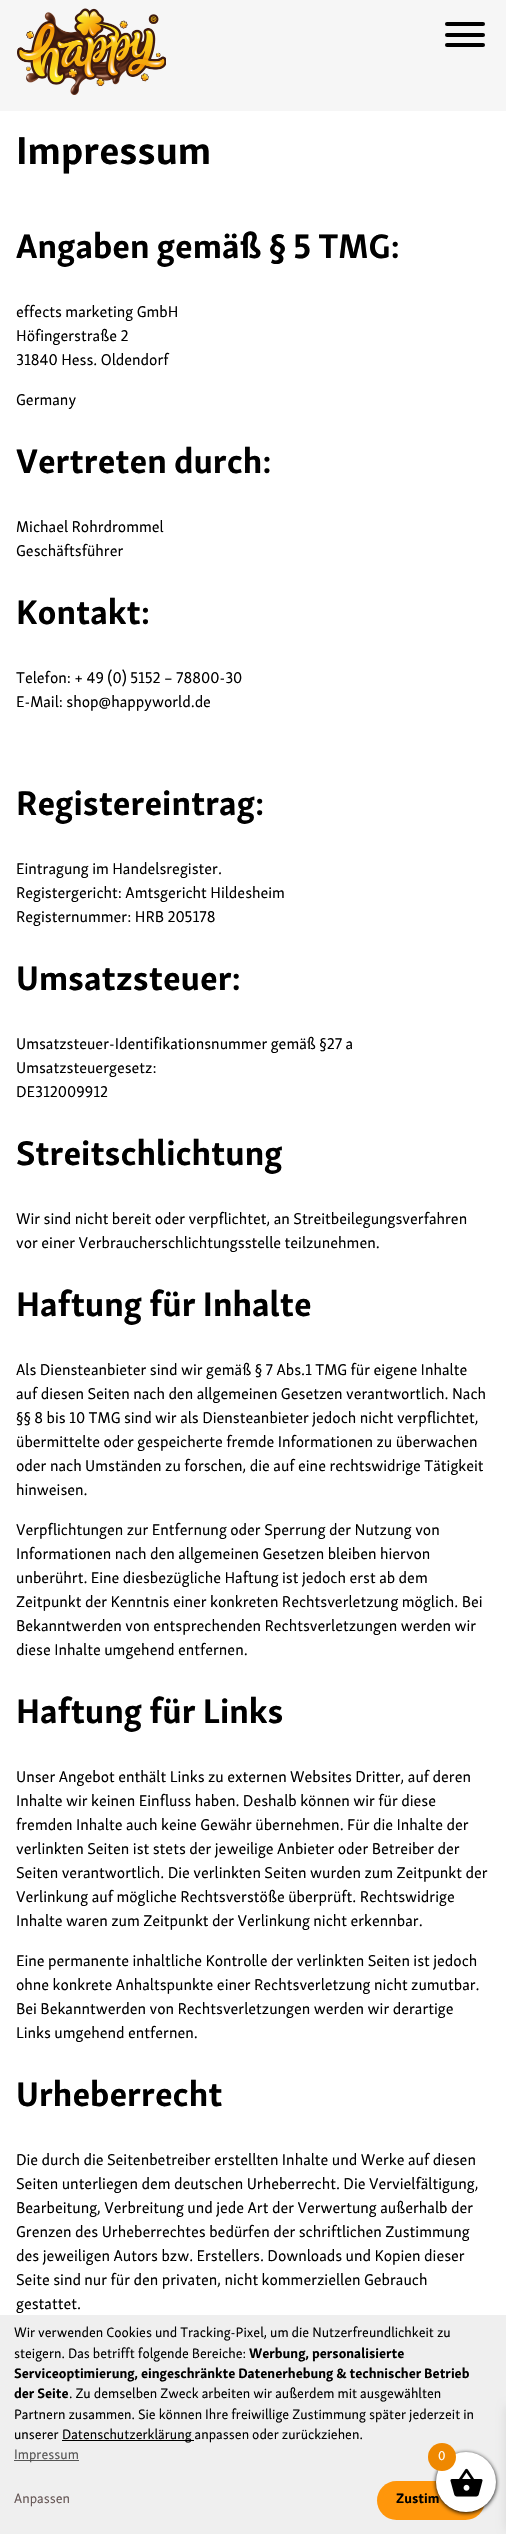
#include "include/core/SkBlurTypes.h"
#include "include/core/SkCanvas.h"
#include "include/core/SkData.h"
#include "include/core/SkFont.h"
#include "include/core/SkFontMgr.h"
#include "include/core/SkImage.h"
#include "include/core/SkMaskFilter.h"
#include "include/core/SkPaint.h"
#include "include/core/SkPathBuilder.h"
#include "include/core/SkTextBlob.h"
#include "include/effects/SkDashPathEffect.h"
#include "include/effects/SkGradientShader.h"
#include "include/utils/SkParsePath.h"

extern sk_sp<SkFontMgr> fontMgr;

static SkFont font(const char* family, int weight, float size, bool italic = false) {
    SkFontStyle style(weight, SkFontStyle::kNormal_Width,
        italic ? SkFontStyle::kItalic_Slant : SkFontStyle::kUpright_Slant);
    SkFont result(fontMgr->matchFamilyStyle(family, style), size);
    result.setSubpixel(true);
    return result;
}

static void drawLabel(SkCanvas* canvas, const char* s, float x, float y, const SkFont& font, SkColor color) {
    SkPaint ink(SkColor4f::FromColor(color));
    ink.setAntiAlias(true);
    canvas->drawString(s, x, y, font, ink);
}

static void fillRect(SkCanvas* canvas, float x, float y, float w, float h, SkColor color) {
    SkPaint ink(SkColor4f::FromColor(color));
    ink.setAntiAlias(true);
    canvas->drawRect(SkRect::MakeXYWH(x, y, w, h), ink);
}

static void fillRRect(SkCanvas* canvas, float x, float y, float w, float h, float radius, SkColor color) {
    SkPaint ink(SkColor4f::FromColor(color));
    ink.setAntiAlias(true);
    canvas->drawRoundRect(SkRect::MakeXYWH(x, y, w, h), radius, radius, ink);
}

static void drawPhoto(SkCanvas* canvas, const char* path, float x, float y, float w, float h) {
    auto image = SkImages::DeferredFromEncodedData(SkData::MakeFromFileName(path));
    canvas->drawImageRect(image, SkRect::MakeXYWH(x, y, w, h), SkSamplingOptions());
}

void draw(SkCanvas* canvas) {
    SkPaint paint;
    paint.setAntiAlias(true);
    canvas->clear(0xFFFFFFFF);
    fillRect(canvas, 0, 0, 506, 111, 0xFFF6F6F6);
    drawPhoto(canvas, "assets/img1.png", 17, 8, 149, 87);
    fillRRect(canvas, 445, 22, 40, 4, 2, 0xFF000000);
    fillRRect(canvas, 445, 33, 40, 4, 2, 0xFF000000);
    fillRRect(canvas, 445, 43, 40, 4, 2, 0xFF000000);
    SkFont font1 = font("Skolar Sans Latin", 700, 40);
    drawLabel(canvas, "Impressum", 16, 164, font1, 0xFF000000);
    SkFont font2 = font("Skolar Sans Latin", 700, 35);
    drawLabel(canvas, "Angaben gemäß § 5 TMG:", 16, 258, font2, 0xFF000000);
    SkFont font3 = font("Skolar Sans Latin", 400, 16);
    drawLabel(canvas, "effects marketing GmbH", 16, 317, font3, 0xFF000000);
    drawLabel(canvas, "Höfingerstraße 2", 16, 341, font3, 0xFF000000);
    drawLabel(canvas, "31840 Hess. Oldendorf", 16, 365, font3, 0xFF000000);
    drawLabel(canvas, "Germany", 16, 405, font3, 0xFF000000);
    drawLabel(canvas, "Vertreten durch:", 16, 473, font2, 0xFF000000);
    drawLabel(canvas, "Michael Rohrdrommel", 16, 532, font3, 0xFF000000);
    drawLabel(canvas, "Geschäftsführer", 16, 556, font3, 0xFF000000);
    drawLabel(canvas, "Kontakt:", 16, 624, font2, 0xFF000000);
    drawLabel(canvas, "Telefon: + 49 (0) 5152 – 78800-30", 16, 683, font3, 0xFF000000);
    drawLabel(canvas, "E-Mail: shop@happyworld.de", 16, 707, font3, 0xFF000000);
    drawLabel(canvas, "Registereintrag:", 16, 815, font2, 0xFF000000);
    drawLabel(canvas, "Eintragung im Handelsregister.", 16, 874, font3, 0xFF000000);
    drawLabel(canvas, "Registergericht: Amtsgericht Hildesheim", 16, 898, font3, 0xFF000000);
    drawLabel(canvas, "Registernummer: HRB 205178", 16, 922, font3, 0xFF000000);
    drawLabel(canvas, "Umsatzsteuer:", 16, 990, font2, 0xFF000000);
    drawLabel(canvas, "Umsatzsteuer-Identifikationsnummer gemäß §27 a", 16, 1049, font3, 0xFF000000);
    drawLabel(canvas, "Umsatzsteuergesetz:", 16, 1073, font3, 0xFF000000);
    drawLabel(canvas, "DE312009912", 16, 1097, font3, 0xFF000000);
    drawLabel(canvas, "Streitschlichtung", 16, 1165, font2, 0xFF000000);
    drawLabel(canvas, "Wir sind nicht bereit oder verpflichtet, an Streitbeilegungsverfahren", 16, 1224, font3, 0xFF000000);
    drawLabel(canvas, "vor einer Verbraucherschlichtungsstelle teilzunehmen.", 16, 1248, font3, 0xFF000000);
    drawLabel(canvas, "Haftung für Inhalte", 16, 1316, font2, 0xFF000000);
    drawLabel(canvas, "Als Diensteanbieter sind wir gemäß § 7 Abs.1 TMG für eigene Inhalte", 16, 1375, font3, 0xFF000000);
    drawLabel(canvas, "auf diesen Seiten nach den allgemeinen Gesetzen verantwortlich. Nach", 16, 1399, font3, 0xFF000000);
    drawLabel(canvas, "§§ 8 bis 10 TMG sind wir als Diensteanbieter jedoch nicht verpflichtet,", 16, 1423, font3, 0xFF000000);
    drawLabel(canvas, "übermittelte oder gespeicherte fremde Informationen zu überwachen", 16, 1447, font3, 0xFF000000);
    drawLabel(canvas, "oder nach Umständen zu forschen, die auf eine rechtswidrige Tätigkeit", 16, 1471, font3, 0xFF000000);
    drawLabel(canvas, "hinweisen.", 16, 1495, font3, 0xFF000000);
    drawLabel(canvas, "Verpflichtungen zur Entfernung oder Sperrung der Nutzung von", 16, 1535, font3, 0xFF000000);
    drawLabel(canvas, "Informationen nach den allgemeinen Gesetzen bleiben hiervon", 16, 1559, font3, 0xFF000000);
    drawLabel(canvas, "unberührt. Eine diesbezügliche Haftung ist jedoch erst ab dem", 16, 1583, font3, 0xFF000000);
    drawLabel(canvas, "Zeitpunkt der Kenntnis einer konkreten Rechtsverletzung möglich. Bei", 16, 1607, font3, 0xFF000000);
    drawLabel(canvas, "Bekanntwerden von entsprechenden Rechtsverletzungen werden wir", 16, 1631, font3, 0xFF000000);
    drawLabel(canvas, "diese Inhalte umgehend entfernen.", 16, 1655, font3, 0xFF000000);
    drawLabel(canvas, "Haftung für Links", 16, 1723, font2, 0xFF000000);
    drawLabel(canvas, "Unser Angebot enthält Links zu externen Websites Dritter, auf deren", 16, 1782, font3, 0xFF000000);
    drawLabel(canvas, "Inhalte wir keinen Einfluss haben. Deshalb können wir für diese", 16, 1806, font3, 0xFF000000);
    drawLabel(canvas, "fremden Inhalte auch keine Gewähr übernehmen. Für die Inhalte der", 16, 1830, font3, 0xFF000000);
    drawLabel(canvas, "verlinkten Seiten ist stets der jeweilige Anbieter oder Betreiber der", 16, 1854, font3, 0xFF000000);
    drawLabel(canvas, "Seiten verantwortlich. Die verlinkten Seiten wurden zum Zeitpunkt der", 16, 1878, font3, 0xFF000000);
    drawLabel(canvas, "Verlinkung auf mögliche Rechtsverstöße überprüft. Rechtswidrige", 16, 1902, font3, 0xFF000000);
    drawLabel(canvas, "Inhalte waren zum Zeitpunkt der Verlinkung nicht erkennbar.", 16, 1926, font3, 0xFF000000);
    drawLabel(canvas, "Eine permanente inhaltliche Kontrolle der verlinkten Seiten ist jedoch", 16, 1966, font3, 0xFF000000);
    drawLabel(canvas, "ohne konkrete Anhaltspunkte einer Rechtsverletzung nicht zumutbar.", 16, 1990, font3, 0xFF000000);
    drawLabel(canvas, "Bei Bekanntwerden von Rechtsverletzungen werden wir derartige", 16, 2014, font3, 0xFF000000);
    drawLabel(canvas, "Links umgehend entfernen.", 16, 2038, font3, 0xFF000000);
    drawLabel(canvas, "Urheberrecht", 16, 2106, font2, 0xFF000000);
    drawLabel(canvas, "Die durch die Seitenbetreiber erstellten Inhalte und Werke auf diesen", 16, 2165, font3, 0xFF000000);
    drawLabel(canvas, "Seiten unterliegen dem deutschen Urheberrecht. Die Vervielfältigung,", 16, 2189, font3, 0xFF000000);
    drawLabel(canvas, "Bearbeitung, Verbreitung und jede Art der Verwertung außerhalb der", 16, 2213, font3, 0xFF000000);
    drawLabel(canvas, "Grenzen des Urheberrechtes bedürfen der schriftlichen Zustimmung", 16, 2237, font3, 0xFF000000);
    drawLabel(canvas, "des jeweiligen Autors bzw. Erstellers. Downloads und Kopien dieser", 16, 2261, font3, 0xFF000000);
    drawLabel(canvas, "Seite sind nur für den privaten, nicht kommerziellen Gebrauch", 16, 2285, font3, 0xFF000000);
    drawLabel(canvas, "gestattet.", 16, 2309, font3, 0xFF000000);
    fillRect(canvas, 0, 2315, 506, 219, 0xFFEFEFEF);
    SkFont font4 = font("Skolar Sans Latin", 400, 14);
    drawLabel(canvas, "Wir verwenden Cookies und Tracking-Pixel, um die Nutzerfreundlichkeit zu", 14, 2337, font4, 0xFF000000);
    drawLabel(canvas, "steigern. Das betrifft folgende Bereiche:", 14, 2358, font4, 0xFF000000);
    SkFont font5 = font("Skolar Sans Latin", 700, 14);
    drawLabel(canvas, "Werbung, personalisierte", 249, 2358, font5, 0xFF000000);
    drawLabel(canvas, "Serviceoptimierung, eingeschränkte Datenerhebung & technischer Betrieb", 14, 2378, font5, 0xFF000000);
    drawLabel(canvas, "der Seite", 14, 2398, font5, 0xFF000000);
    drawLabel(canvas, ". Zu demselben Zweck arbeiten wir außerdem mit ausgewählten", 69, 2398, font4, 0xFF000000);
    drawLabel(canvas, "Partnern zusammen. Sie können Ihre freiwillige Zustimmung später jederzeit in", 14, 2419, font4, 0xFF000000);
    drawLabel(canvas, "unserer", 14, 2439, font4, 0xFF000000);
    fillRect(canvas, 62, 2440, 132, 1, 0xFF000000);
    drawLabel(canvas, "Datenschutzerklärung anpassen oder zurückziehen.", 62, 2439, font4, 0xFF000000);
    fillRect(canvas, 14, 2460, 65, 1, 0xFF555555);
    drawLabel(canvas, "Impressum", 14, 2459, font4, 0xFF555555);
    drawLabel(canvas, "Anpassen", 14, 2503, font4, 0xFF685958);
    fillRRect(canvas, 377, 2481, 108, 39, 19.5f, 0xFFFF960B);
    drawLabel(canvas, "Zustim", 396, 2503, font5, 0xFF000000);
    paint.setColor(0xFF000000);
    paint.setMaskFilter(SkMaskFilter::MakeBlur(kNormal_SkBlurStyle, 2));
    canvas->drawRoundRect(SkRect::MakeXYWH(436, 2453, 60, 60), 30, 30, paint);
    paint.setMaskFilter(nullptr);
    paint.setColor(0x1A000000);
    paint.setMaskFilter(SkMaskFilter::MakeBlur(kNormal_SkBlurStyle, 5));
    canvas->drawRect(SkRect::MakeXYWH(506, 2407, 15, 122), paint);
    paint.setMaskFilter(nullptr);
    paint.setColor(0xFFFFFFFF);
    canvas->drawCircle(466, 2482, 30, paint);
    drawPhoto(canvas, "assets/img2.png", 450, 2468, 33, 29);
    paint.setColor(0xFFEF8800);
    canvas->drawCircle(442, 2457, 14, paint);
    SkFont font6 = font("Skolar Sans Latin", 400, 13);
    drawLabel(canvas, "0", 438, 2460, font6, 0xFFFFFFFF);
}
